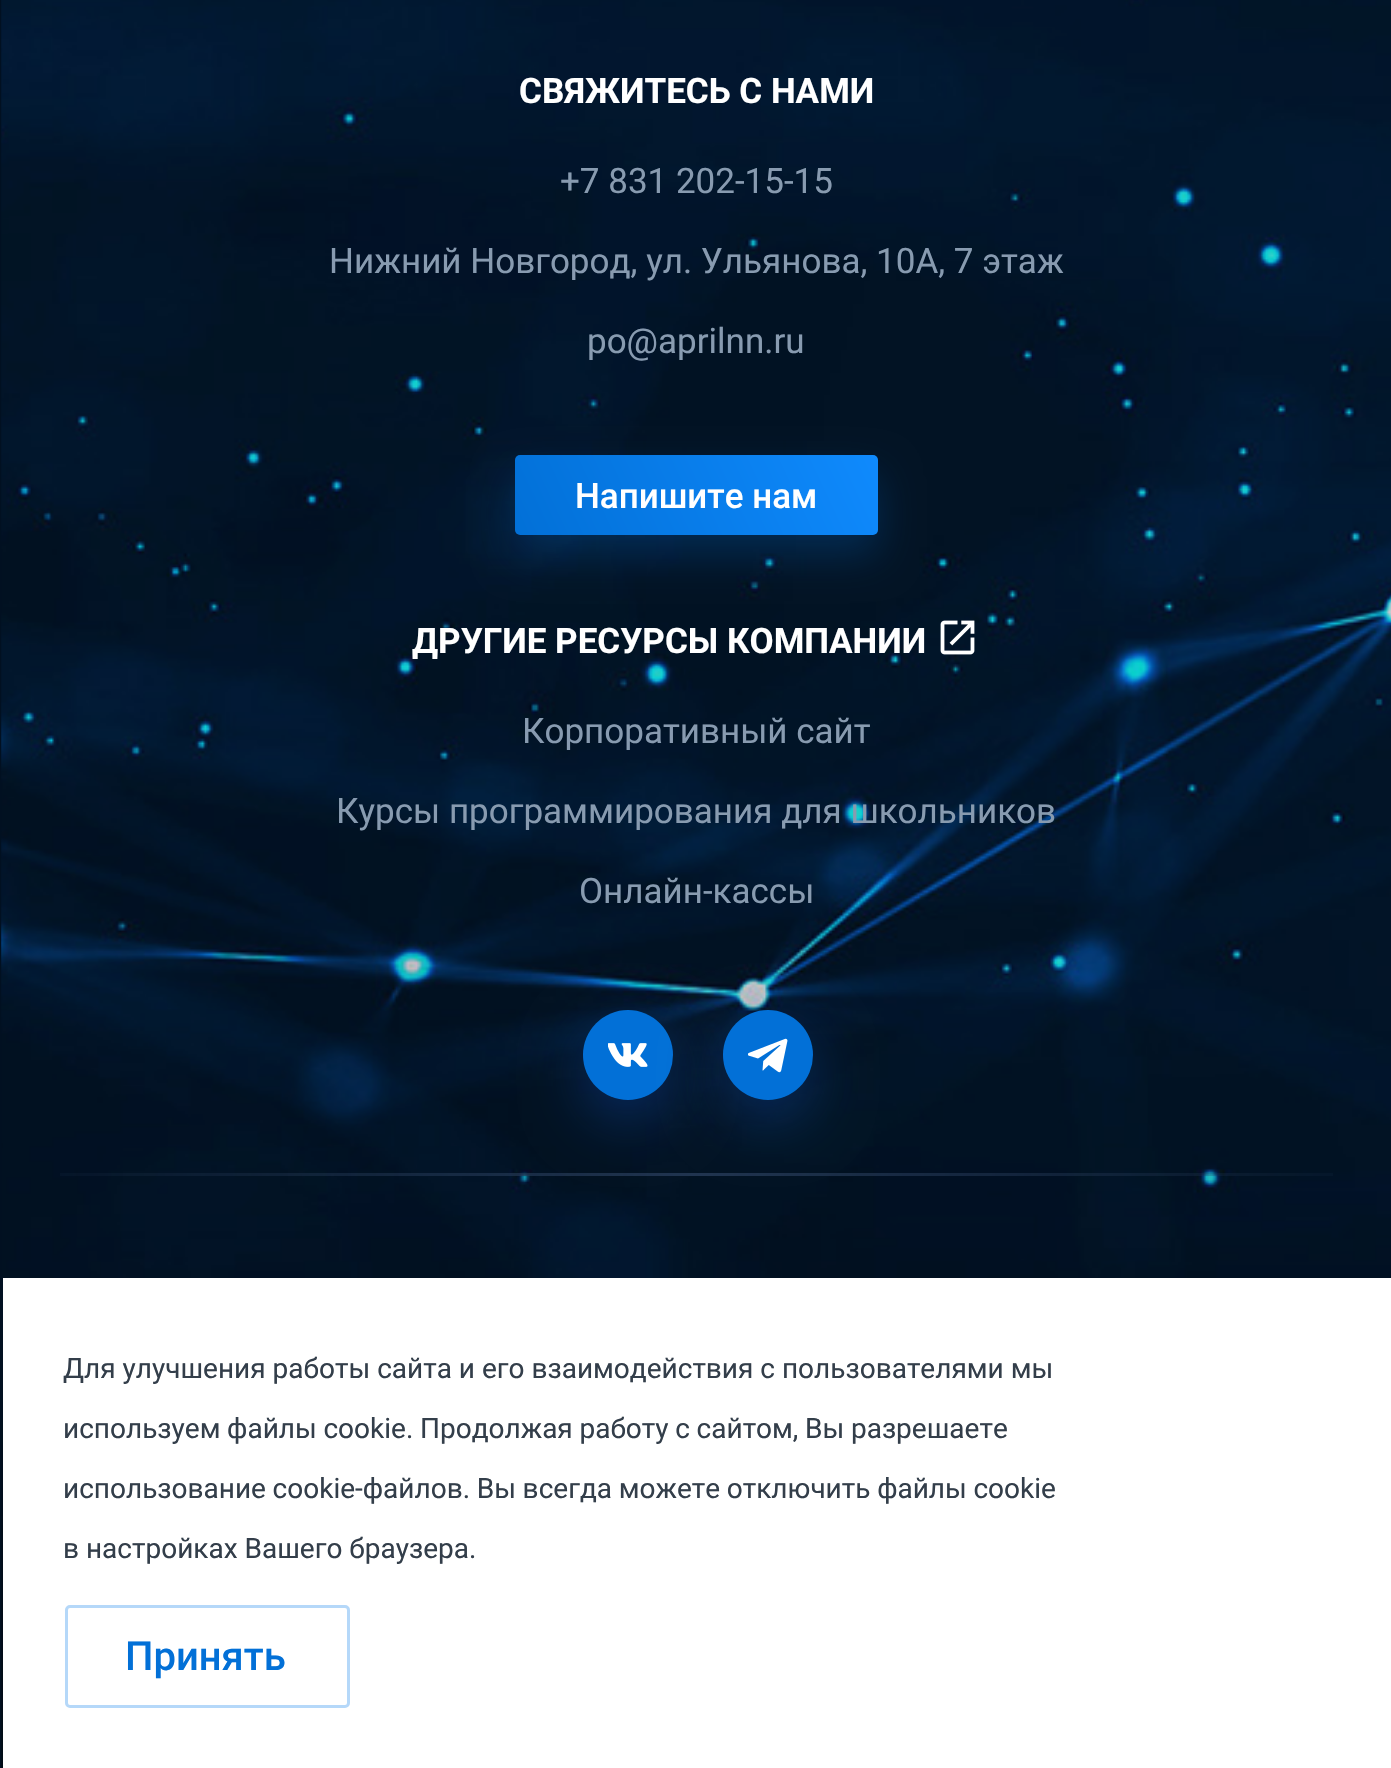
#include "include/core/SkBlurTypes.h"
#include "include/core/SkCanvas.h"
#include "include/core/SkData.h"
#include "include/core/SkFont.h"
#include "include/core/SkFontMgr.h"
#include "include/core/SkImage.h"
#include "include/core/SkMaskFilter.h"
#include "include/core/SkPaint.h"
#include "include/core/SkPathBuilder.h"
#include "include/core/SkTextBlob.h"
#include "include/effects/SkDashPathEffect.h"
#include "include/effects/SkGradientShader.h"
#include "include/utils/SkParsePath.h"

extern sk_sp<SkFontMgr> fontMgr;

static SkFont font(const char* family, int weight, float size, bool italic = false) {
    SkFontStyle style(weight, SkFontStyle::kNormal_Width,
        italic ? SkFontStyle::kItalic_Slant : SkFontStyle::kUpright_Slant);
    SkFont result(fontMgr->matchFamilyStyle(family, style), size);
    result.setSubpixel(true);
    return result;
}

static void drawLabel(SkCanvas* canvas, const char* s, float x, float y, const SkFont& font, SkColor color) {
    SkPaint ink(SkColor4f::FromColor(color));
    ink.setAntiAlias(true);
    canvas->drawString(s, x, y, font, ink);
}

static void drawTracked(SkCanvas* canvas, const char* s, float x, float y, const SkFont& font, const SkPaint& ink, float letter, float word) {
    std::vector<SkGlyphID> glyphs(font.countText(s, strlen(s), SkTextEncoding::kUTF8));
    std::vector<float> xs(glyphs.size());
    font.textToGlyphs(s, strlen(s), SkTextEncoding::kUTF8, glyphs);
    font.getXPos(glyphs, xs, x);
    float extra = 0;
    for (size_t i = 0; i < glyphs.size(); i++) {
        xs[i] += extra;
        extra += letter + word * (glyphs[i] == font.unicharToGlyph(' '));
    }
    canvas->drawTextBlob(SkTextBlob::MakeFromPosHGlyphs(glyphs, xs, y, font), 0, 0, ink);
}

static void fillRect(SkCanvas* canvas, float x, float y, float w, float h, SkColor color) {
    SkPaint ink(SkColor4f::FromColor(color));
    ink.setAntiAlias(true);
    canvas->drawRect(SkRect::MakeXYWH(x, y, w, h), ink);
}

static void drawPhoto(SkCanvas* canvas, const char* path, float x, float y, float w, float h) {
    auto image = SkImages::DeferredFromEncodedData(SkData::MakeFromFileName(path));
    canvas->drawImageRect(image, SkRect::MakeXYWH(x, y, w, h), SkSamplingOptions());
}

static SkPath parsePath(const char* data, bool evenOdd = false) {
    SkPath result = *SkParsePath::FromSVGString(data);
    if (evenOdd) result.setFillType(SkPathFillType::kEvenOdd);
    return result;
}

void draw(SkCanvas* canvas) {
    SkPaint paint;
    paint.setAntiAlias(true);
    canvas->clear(0xFF011021);
    drawPhoto(canvas, "assets/img1.png", 1, 0, 1390, 1768);
    SkFont font1 = font("Roboto", 700, 35);
    drawLabel(canvas, "СВЯЖИТЕСЬ С НАМИ", 519, 103, font1, 0xFFFFFFFF);
    SkFont font2 = font("Roboto", 400, 35);
    drawLabel(canvas, "+7 831 202-15-15", 560, 193, font2, 0xFF889BB0);
    drawLabel(canvas, "Нижний Новгород, ул. Ульянова, 10А, 7 этаж", 329, 273, font2, 0xFF889BB0);
    drawLabel(canvas, "po@aprilnn.ru", 587, 353, font2, 0xFF889BB0);
    {
        const SkColor colors[] = {0xFF0270D7, 0xFF0F8AFD};
        const float stops[] = {0, 1};
        const SkPoint ends[] = {{532, 572}, {860, 418}};
        paint.setShader(SkGradientShader::MakeLinear(ends, colors, stops, 2, SkTileMode::kClamp));
        paint.setAlpha(255);
    }
    canvas->drawRoundRect(SkRect::MakeXYWH(515, 455, 363, 80), 5, 5, paint);
    canvas->save();
    canvas->clipPath(parsePath("M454 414H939V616H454ZM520 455H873C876 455 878 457 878 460V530C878 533 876 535 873 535H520C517 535 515 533 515 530V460C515 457 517 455 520 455Z", true), true);
    paint.setShader(nullptr);
    paint.setColor(0x400270D7);
    paint.setMaskFilter(SkMaskFilter::MakeBlur(kNormal_SkBlurStyle, 20));
    canvas->drawRoundRect(SkRect::MakeXYWH(515, 475, 363, 80), 5, 5, paint);
    paint.setMaskFilter(nullptr);
    canvas->restore();
    SkFont font3 = font("Roboto", 500, 35);
    drawLabel(canvas, "Напишите нам", 575, 508, font3, 0xFFFFFFFF);
    drawLabel(canvas, "ДРУГИЕ РЕСУРСЫ КОМПАНИИ", 412, 653, font1, 0xFFFFFFFF);
    drawPhoto(canvas, "assets/img2.png", 940, 620, 35, 35);
    drawLabel(canvas, "Корпоративный сайт", 522, 743, font2, 0xFF889BB0);
    drawLabel(canvas, "Курсы программирования для школьников", 336, 823, font2, 0xFF889BB0);
    drawLabel(canvas, "Онлайн-кассы", 579, 903, font2, 0xFF889BB0);
    paint.setColor(0x800D47A1);
    paint.setMaskFilter(SkMaskFilter::MakeBlur(kNormal_SkBlurStyle, 30));
    canvas->drawRoundRect(SkRect::MakeXYWH(583, 1030, 90, 90), 45, 45, paint);
    paint.setMaskFilter(nullptr);
    paint.setColor(0xFF0270D7);
    canvas->drawCircle(628, 1055, 45, paint);
    paint.setColor(0x800D47A1);
    paint.setMaskFilter(SkMaskFilter::MakeBlur(kNormal_SkBlurStyle, 30));
    canvas->drawRoundRect(SkRect::MakeXYWH(723, 1030, 90, 90), 45, 45, paint);
    paint.setMaskFilter(nullptr);
    drawPhoto(canvas, "assets/img3.png", 608, 1043, 40, 24);
    paint.setColor(0xFF0270D7);
    canvas->drawCircle(768, 1055, 45, paint);
    drawPhoto(canvas, "assets/img4.png", 748, 1038, 40, 35);
    {
        const SkColor colors[] = {0x1A273C5A, 0xCC273C5A, 0x1A273C5A};
        const float stops[] = {0, 0.5f, 1};
        const SkPoint ends[] = {{60, 1174}, {1333, 1174}};
        paint.setShader(SkGradientShader::MakeLinear(ends, colors, stops, 3, SkTileMode::kClamp));
        paint.setAlpha(255);
    }
    canvas->drawRect(SkRect::MakeXYWH(60, 1173, 1273, 3), paint);
    fillRect(canvas, 3, 1278, 1388, 490, 0xFFFFFFFF);
    SkFont font4 = font("Roboto", 400, 28);
    drawLabel(canvas, "Для улучшения работы сайта и его взаимодействия с пользователями мы", 63, 1378, font4, 0xFF333E4A);
    paint.setShader(nullptr);
    paint.setColor(0xFF333E4A);
    drawTracked(canvas, "используем файлы cookie. Продолжая работу с сайтом, Вы разрешаете", 63, 1438, font4, paint, 0, -0.25f);
    drawTracked(canvas, "использование cookie-файлов. Вы всегда можете отключить файлы cookie", 63, 1498, font4, paint, 0, -0.25f);
    drawLabel(canvas, "в настройках Вашего браузера.", 63, 1558, font4, 0xFF333E4A);
    paint.setStroke(true);
    paint.setStrokeWidth(3);
    paint.setColor(0xFFB5D8F9);
    canvas->drawRoundRect(SkRect::MakeXYWH(66.5f, 1606.5f, 282, 100), 3.5f, 3.5f, paint);
    SkFont font5 = font("Roboto", 500, 40);
    drawLabel(canvas, "Принять", 125, 1670, font5, 0xFF0270D7);
}
